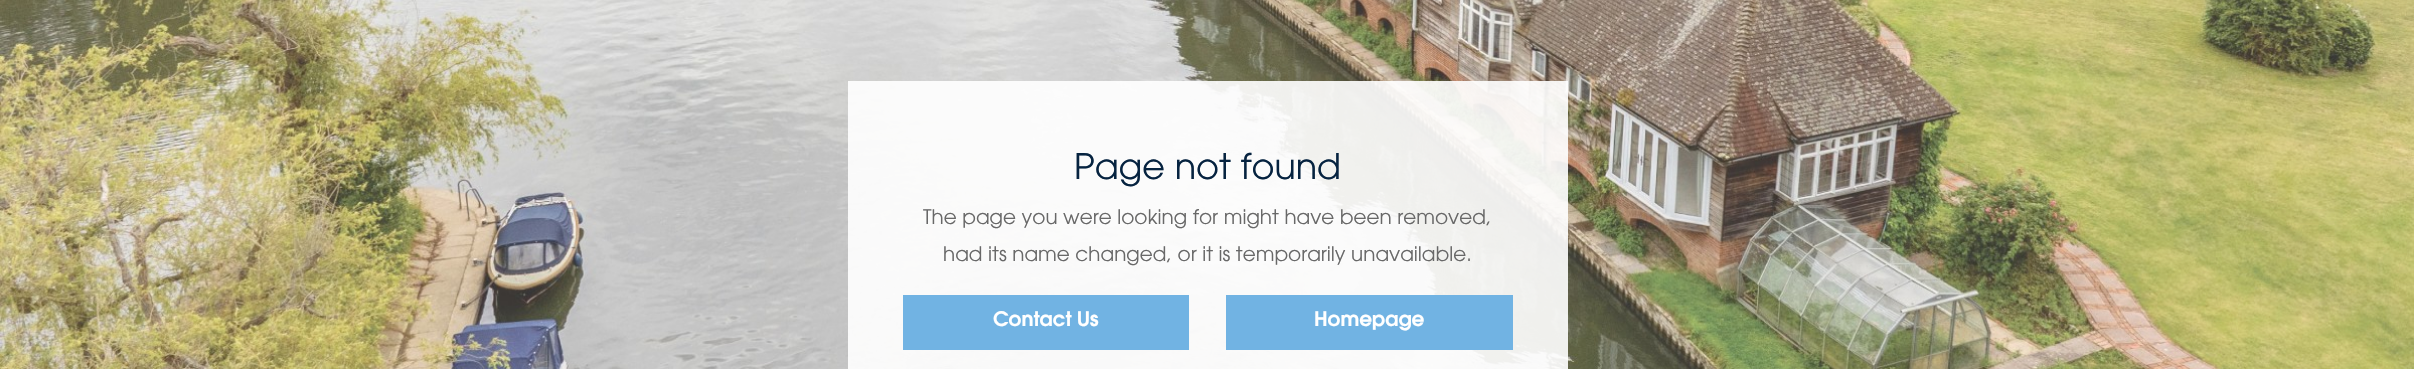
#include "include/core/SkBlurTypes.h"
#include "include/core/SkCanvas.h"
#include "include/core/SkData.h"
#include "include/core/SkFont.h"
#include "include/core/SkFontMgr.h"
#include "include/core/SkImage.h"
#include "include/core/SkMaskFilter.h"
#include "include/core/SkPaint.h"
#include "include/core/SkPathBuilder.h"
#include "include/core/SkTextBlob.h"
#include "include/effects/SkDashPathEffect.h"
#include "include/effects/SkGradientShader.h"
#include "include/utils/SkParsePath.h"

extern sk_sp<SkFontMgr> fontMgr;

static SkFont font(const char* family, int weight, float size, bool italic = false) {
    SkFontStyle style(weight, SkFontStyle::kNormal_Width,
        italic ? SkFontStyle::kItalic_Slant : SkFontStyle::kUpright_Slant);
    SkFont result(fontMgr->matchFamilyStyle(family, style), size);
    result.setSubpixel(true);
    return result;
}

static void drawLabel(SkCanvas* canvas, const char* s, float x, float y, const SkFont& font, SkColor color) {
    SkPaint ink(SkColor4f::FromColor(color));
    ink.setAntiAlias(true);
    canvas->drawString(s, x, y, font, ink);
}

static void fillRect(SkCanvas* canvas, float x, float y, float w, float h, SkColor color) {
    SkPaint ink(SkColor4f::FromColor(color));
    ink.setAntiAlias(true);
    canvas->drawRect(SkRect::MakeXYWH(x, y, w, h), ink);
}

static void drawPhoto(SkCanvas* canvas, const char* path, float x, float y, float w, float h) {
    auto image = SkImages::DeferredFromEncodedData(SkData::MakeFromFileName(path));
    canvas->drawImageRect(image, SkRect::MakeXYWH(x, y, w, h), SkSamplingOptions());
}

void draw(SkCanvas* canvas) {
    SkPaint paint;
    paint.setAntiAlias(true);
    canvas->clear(0xFFFFFFFF);
    drawPhoto(canvas, "assets/img1.png", 0, 0, 2414, 369);
    fillRect(canvas, 848, 81, 720, 288, 0xE6FFFFFF);
    SkFont font1 = font("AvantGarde", 400, 35);
    drawLabel(canvas, "Page not found", 1074, 179, font1, 0xFF062340);
    SkFont font2 = font("AvantGarde", 400, 20);
    drawLabel(canvas, "The page you were looking for might have been removed,", 923, 224, font2, 0xFF686868);
    drawLabel(canvas, "had its name changed, or it is temporarily unavailable.", 943, 261, font2, 0xFF686868);
    fillRect(canvas, 903, 295, 286, 55, 0xFF71B3E3);
    SkFont font3 = font("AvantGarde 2", 400, 20);
    drawLabel(canvas, "Contact Us", 993, 326, font3, 0xFFFFFFFF);
    fillRect(canvas, 1226, 295, 287, 55, 0xFF71B3E3);
    drawLabel(canvas, "Homepage", 1314, 326, font3, 0xFFFFFFFF);
}
